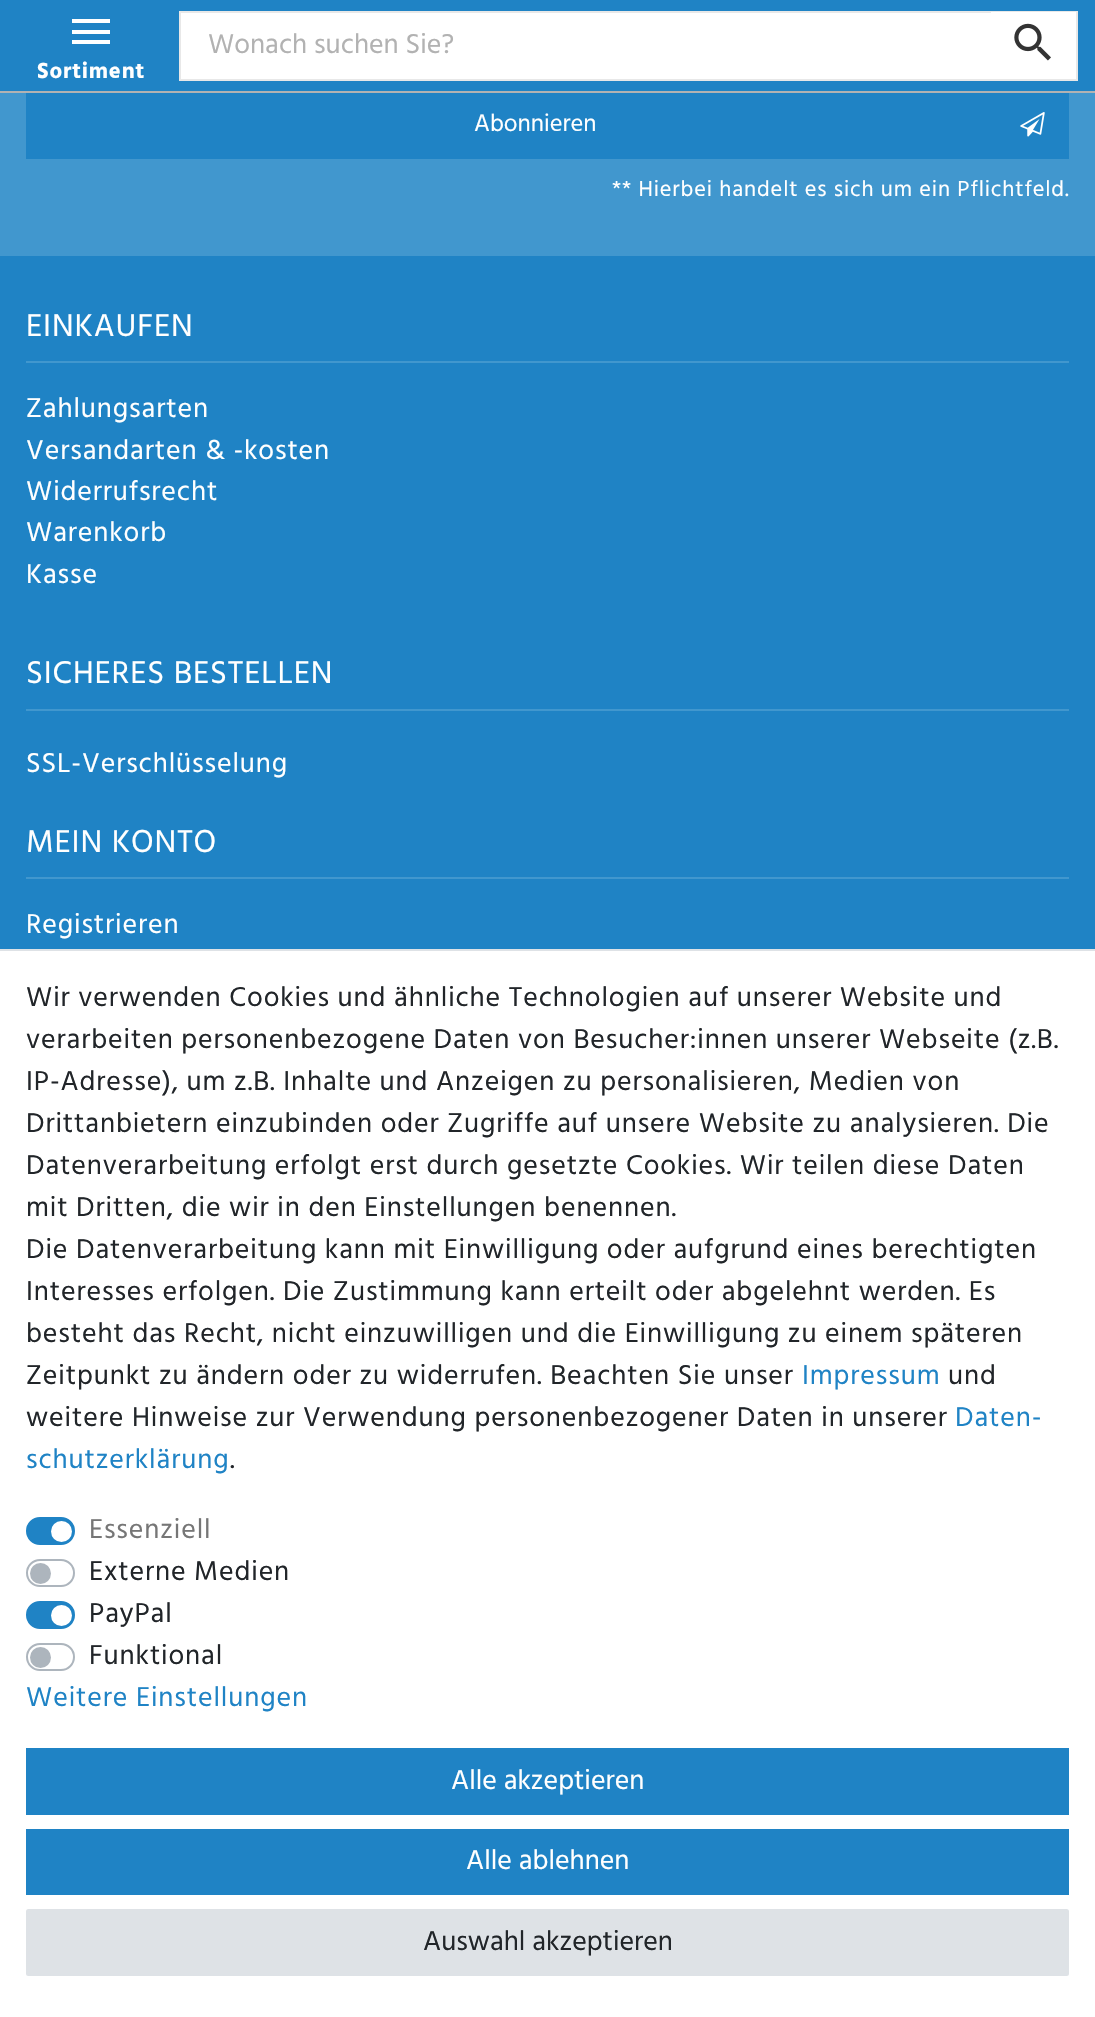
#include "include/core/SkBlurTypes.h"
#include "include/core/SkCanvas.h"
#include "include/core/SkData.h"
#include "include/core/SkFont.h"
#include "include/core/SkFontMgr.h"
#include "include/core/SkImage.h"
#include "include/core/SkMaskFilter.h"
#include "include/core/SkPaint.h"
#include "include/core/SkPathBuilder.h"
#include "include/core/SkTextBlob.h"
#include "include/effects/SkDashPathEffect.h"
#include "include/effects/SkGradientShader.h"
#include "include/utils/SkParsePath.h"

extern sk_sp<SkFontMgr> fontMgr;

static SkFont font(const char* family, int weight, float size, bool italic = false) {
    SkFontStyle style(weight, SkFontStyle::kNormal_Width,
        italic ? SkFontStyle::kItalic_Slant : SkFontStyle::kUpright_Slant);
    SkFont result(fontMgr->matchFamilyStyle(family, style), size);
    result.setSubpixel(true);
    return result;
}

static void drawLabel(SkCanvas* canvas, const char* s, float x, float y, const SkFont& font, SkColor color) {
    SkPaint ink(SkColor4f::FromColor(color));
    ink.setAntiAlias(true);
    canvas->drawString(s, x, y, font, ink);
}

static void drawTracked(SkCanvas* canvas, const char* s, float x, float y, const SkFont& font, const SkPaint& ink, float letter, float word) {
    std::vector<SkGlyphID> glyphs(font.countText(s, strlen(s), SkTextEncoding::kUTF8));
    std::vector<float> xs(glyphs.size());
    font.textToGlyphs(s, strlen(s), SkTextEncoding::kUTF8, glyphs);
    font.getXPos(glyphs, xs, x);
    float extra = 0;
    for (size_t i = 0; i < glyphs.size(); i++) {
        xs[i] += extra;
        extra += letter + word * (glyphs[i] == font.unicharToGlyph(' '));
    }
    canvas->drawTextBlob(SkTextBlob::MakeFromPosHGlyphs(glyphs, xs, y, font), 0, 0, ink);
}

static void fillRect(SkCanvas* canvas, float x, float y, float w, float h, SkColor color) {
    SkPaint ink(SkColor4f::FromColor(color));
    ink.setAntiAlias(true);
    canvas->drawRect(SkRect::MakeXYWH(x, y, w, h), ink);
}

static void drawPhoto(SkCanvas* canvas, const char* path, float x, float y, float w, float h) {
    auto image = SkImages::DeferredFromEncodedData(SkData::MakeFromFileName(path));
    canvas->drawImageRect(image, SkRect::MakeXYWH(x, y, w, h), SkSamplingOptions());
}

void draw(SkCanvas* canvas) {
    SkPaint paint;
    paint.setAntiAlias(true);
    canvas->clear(0xFF1F83C5);
    fillRect(canvas, 0, 91, 1095, 2, 0xFFB2B2B2);
    paint.setColor(0xFFFFFFFF);
    canvas->drawRect(SkRect::MakeXYWH(180, 12, 897, 68), paint);
    paint.setStroke(true);
    paint.setStrokeWidth(2);
    paint.setColor(0xFFE8E8E8);
    canvas->drawRect(SkRect::MakeXYWH(180, 12, 897, 68), paint);
    SkFont font1 = font("Hind", 400, 28);
    drawLabel(canvas, "Wonach suchen Sie?", 208, 53, font1, 0xFFB2B2B2);
    fillRect(canvas, 991, 12, 85, 1, 0xFFFFFFFF);
    drawPhoto(canvas, "assets/img1.png", 1014, 23, 37, 38);
    fillRect(canvas, 72, 19, 38, 4, 0xFFFFFFFF);
    fillRect(canvas, 72, 30, 38, 4, 0xFFFFFFFF);
    fillRect(canvas, 72, 40, 38, 4, 0xFFFFFFFF);
    SkFont font2 = font("Hind", 700, 22.4f);
    paint.setStroke(false);
    paint.setColor(0xFFFFFFFF);
    drawTracked(canvas, "Sortiment", 37, 78, font2, paint, 0.88f, 0);
    fillRect(canvas, 0, 93, 1095, 163, 0xFF4197CE);
    fillRect(canvas, 26, 93, 1043, 66, 0xFF1F83C5);
    SkFont font3 = font("Hind", 400, 24.5f);
    drawLabel(canvas, "Abonnieren", 474, 131, font3, 0xFFFFFFFF);
    drawPhoto(canvas, "assets/img2.png", 1020, 112, 25, 25);
    SkFont font4 = font("Hind", 400, 22.4f);
    drawTracked(canvas, "** Hierbei handelt es sich um ein Pflichtfeld.", 612, 196, font4, paint, 0.88f, 0);
    fillRect(canvas, 26, 361, 1043, 2, 0xFF4197CE);
    SkFont font5 = font("Hind", 400, 32.25f);
    drawTracked(canvas, "EINKAUFEN", 26, 336, font5, paint, 0.88f, 0);
    drawTracked(canvas, "Zahlungsarten", 26, 417, font1, paint, 0.88f, 0);
    drawTracked(canvas, "Versandarten & -kosten", 26, 459, font1, paint, 0.88f, 0);
    drawTracked(canvas, "Widerrufsrecht", 26, 500, font1, paint, 0.88f, 0);
    drawTracked(canvas, "Warenkorb", 26, 541, font1, paint, 0.88f, 0);
    drawTracked(canvas, "Kasse", 26, 583, font1, paint, 0.88f, 0);
    fillRect(canvas, 26, 709, 1043, 2, 0xFF4197CE);
    drawTracked(canvas, "SICHERES BESTELLEN", 26, 683, font5, paint, 0.88f, 0);
    drawTracked(canvas, "SSL-Verschlüsselung", 26, 772, font1, paint, 0.88f, 0);
    fillRect(canvas, 26, 877, 1043, 2, 0xFF4197CE);
    drawTracked(canvas, "MEIN KONTO", 26, 852, font5, paint, 0.88f, 0);
    drawTracked(canvas, "Registrieren", 26, 933, font1, paint, 0.88f, 0);
    fillRect(canvas, 0, 951, 1095, 1066, 0xFFFFFFFF);
    fillRect(canvas, 0, 949, 1095, 2, 0xFFDEE2E6);
    paint.setColor(0xFF212529);
    drawTracked(canvas, "Wir verwenden Cookies und ähnliche Technologien auf unserer Website und", 26, 1006, font1, paint, 0.88f, 0);
    drawTracked(canvas, "verarbeiten personenbezogene Daten von Besucher:innen unserer Webseite (z.B.", 26, 1048, font1, paint, 0.88f, 0);
    drawTracked(canvas, "IP-Adresse), um z.B. Inhalte und Anzeigen zu personalisieren, Medien von", 26, 1090, font1, paint, 0.88f, 0);
    drawTracked(canvas, "Drittanbietern einzubinden oder Zugriffe auf unsere Website zu analysieren. Die", 26, 1132, font1, paint, 0.88f, 0);
    drawTracked(canvas, "Datenverarbeitung erfolgt erst durch gesetzte Cookies. Wir teilen diese Daten", 26, 1174, font1, paint, 0.88f, 0);
    drawTracked(canvas, "mit Dritten, die wir in den Einstellungen benennen.", 26, 1216, font1, paint, 0.88f, 0);
    drawTracked(canvas, "Die Datenverarbeitung kann mit Einwilligung oder aufgrund eines berechtigten", 26, 1258, font1, paint, 0.88f, 0);
    drawTracked(canvas, "Interesses erfolgen. Die Zustimmung kann erteilt oder abgelehnt werden. Es", 26, 1300, font1, paint, 0.88f, 0);
    drawTracked(canvas, "besteht das Recht, nicht einzuwilligen und die Einwilligung zu einem späteren", 26, 1342, font1, paint, 0.88f, 0);
    drawTracked(canvas, "Zeitpunkt zu ändern oder zu widerrufen. Beachten Sie unser", 26, 1384, font1, paint, 0.88f, 0);
    paint.setColor(0xFF1F83C5);
    drawTracked(canvas, "Impressum", 802, 1384, font1, paint, 0.88f, 0);
    paint.setColor(0xFF212529);
    drawTracked(canvas, "und", 948, 1384, font1, paint, 0.88f, 0);
    drawTracked(canvas, "weitere Hinweise zur Verwendung personenbezogener Daten in unserer", 26, 1426, font1, paint, 0.88f, 0);
    paint.setColor(0xFF1F83C5);
    drawTracked(canvas, "Daten-", 955, 1426, font1, paint, 0.88f, 0);
    drawTracked(canvas, "schutzerklärung", 26, 1468, font1, paint, 0.88f, 0);
    paint.setColor(0xFF212529);
    drawTracked(canvas, ".", 230, 1468, font1, paint, 0.88f, 0);
    paint.setColor(0xFF1F83C5);
    canvas->drawRoundRect(SkRect::MakeXYWH(27, 1518, 47, 26), 13, 13, paint);
    paint.setStroke(true);
    canvas->drawRoundRect(SkRect::MakeXYWH(27, 1518, 47, 26), 13, 13, paint);
    paint.setStroke(false);
    paint.setColor(0xFF767676);
    drawTracked(canvas, "Essenziell", 89, 1538, font1, paint, 0.88f, 0);
    paint.setColor(0xFFFFFFFF);
    canvas->drawCircle(61.5f, 1531.5f, 10.5f, paint);
    paint.setStroke(true);
    paint.setColor(0xFFADB5BD);
    canvas->drawRoundRect(SkRect::MakeXYWH(27, 1560, 47, 26), 13, 13, paint);
    paint.setStroke(false);
    paint.setColor(0xFF212529);
    drawTracked(canvas, "Externe Medien", 89, 1580, font1, paint, 0.88f, 0);
    paint.setColor(0xFFADB5BD);
    canvas->drawCircle(40.5f, 1573.5f, 10.5f, paint);
    paint.setColor(0xFF1F83C5);
    canvas->drawRoundRect(SkRect::MakeXYWH(27, 1602, 47, 26), 13, 13, paint);
    paint.setStroke(true);
    canvas->drawRoundRect(SkRect::MakeXYWH(27, 1602, 47, 26), 13, 13, paint);
    paint.setStroke(false);
    paint.setColor(0xFF212529);
    drawTracked(canvas, "PayPal", 89, 1622, font1, paint, 0.88f, 0);
    paint.setColor(0xFFFFFFFF);
    canvas->drawCircle(61.5f, 1615.5f, 10.5f, paint);
    paint.setStroke(true);
    paint.setColor(0xFFADB5BD);
    canvas->drawRoundRect(SkRect::MakeXYWH(27, 1644, 47, 26), 13, 13, paint);
    paint.setStroke(false);
    paint.setColor(0xFF212529);
    drawTracked(canvas, "Funktional", 89, 1664, font1, paint, 0.88f, 0);
    paint.setColor(0xFFADB5BD);
    canvas->drawCircle(40.5f, 1657.5f, 10.5f, paint);
    paint.setColor(0xFF1F83C5);
    drawTracked(canvas, "Weitere Einstellungen", 26, 1706, font1, paint, 0.88f, 0);
    fillRect(canvas, 26, 1748, 1043, 67, 0xFF1F83C5);
    drawLabel(canvas, "Alle akzeptieren", 451, 1789, font1, 0xFFFFFFFF);
    fillRect(canvas, 26, 1829, 1043, 66, 0xFF1F83C5);
    drawLabel(canvas, "Alle ablehnen", 466, 1869, font1, 0xFFFFFFFF);
    paint.setColor(0xFFDEE2E6);
    canvas->drawRoundRect(SkRect::MakeXYWH(27, 1910, 1041, 65), 1.5f, 1.5f, paint);
    paint.setStroke(true);
    canvas->drawRoundRect(SkRect::MakeXYWH(27, 1910, 1041, 65), 1.5f, 1.5f, paint);
    drawLabel(canvas, "Auswahl akzeptieren", 423, 1950, font1, 0xFF212529);
}
